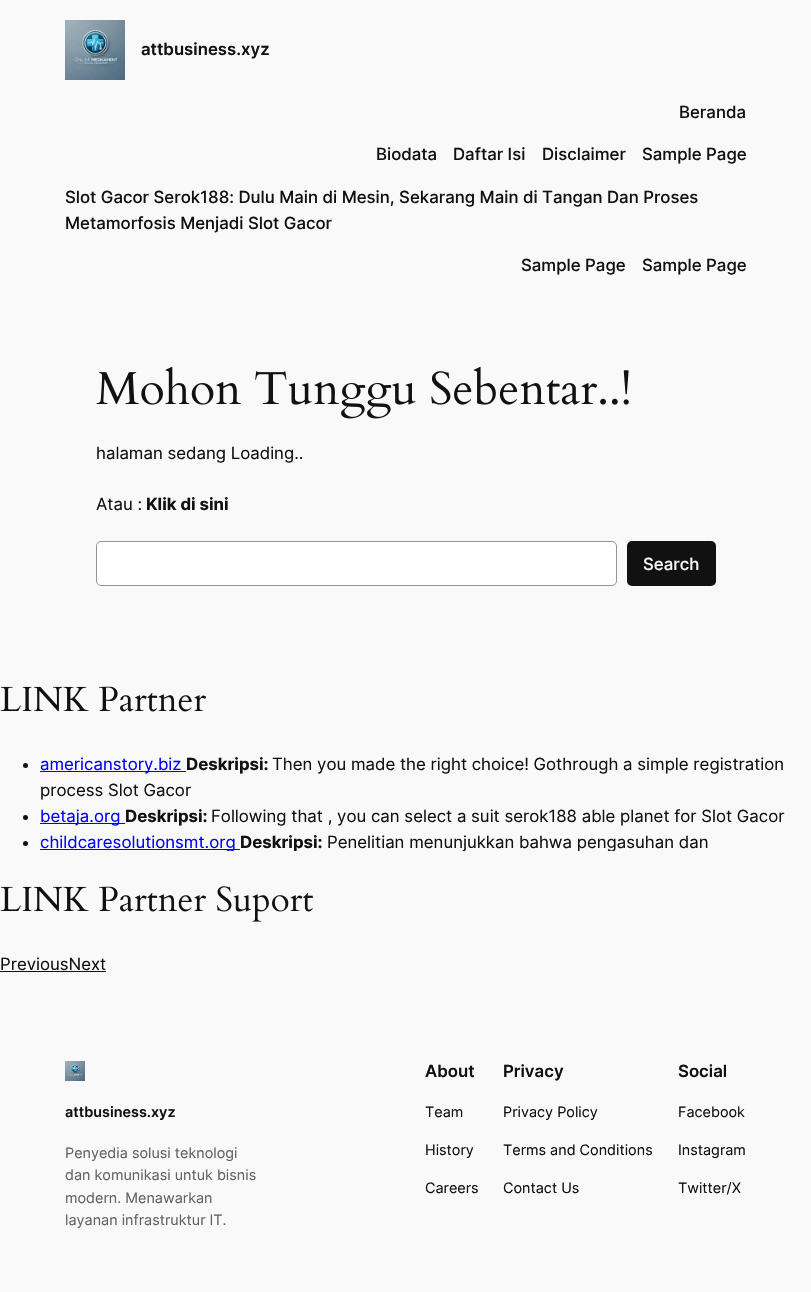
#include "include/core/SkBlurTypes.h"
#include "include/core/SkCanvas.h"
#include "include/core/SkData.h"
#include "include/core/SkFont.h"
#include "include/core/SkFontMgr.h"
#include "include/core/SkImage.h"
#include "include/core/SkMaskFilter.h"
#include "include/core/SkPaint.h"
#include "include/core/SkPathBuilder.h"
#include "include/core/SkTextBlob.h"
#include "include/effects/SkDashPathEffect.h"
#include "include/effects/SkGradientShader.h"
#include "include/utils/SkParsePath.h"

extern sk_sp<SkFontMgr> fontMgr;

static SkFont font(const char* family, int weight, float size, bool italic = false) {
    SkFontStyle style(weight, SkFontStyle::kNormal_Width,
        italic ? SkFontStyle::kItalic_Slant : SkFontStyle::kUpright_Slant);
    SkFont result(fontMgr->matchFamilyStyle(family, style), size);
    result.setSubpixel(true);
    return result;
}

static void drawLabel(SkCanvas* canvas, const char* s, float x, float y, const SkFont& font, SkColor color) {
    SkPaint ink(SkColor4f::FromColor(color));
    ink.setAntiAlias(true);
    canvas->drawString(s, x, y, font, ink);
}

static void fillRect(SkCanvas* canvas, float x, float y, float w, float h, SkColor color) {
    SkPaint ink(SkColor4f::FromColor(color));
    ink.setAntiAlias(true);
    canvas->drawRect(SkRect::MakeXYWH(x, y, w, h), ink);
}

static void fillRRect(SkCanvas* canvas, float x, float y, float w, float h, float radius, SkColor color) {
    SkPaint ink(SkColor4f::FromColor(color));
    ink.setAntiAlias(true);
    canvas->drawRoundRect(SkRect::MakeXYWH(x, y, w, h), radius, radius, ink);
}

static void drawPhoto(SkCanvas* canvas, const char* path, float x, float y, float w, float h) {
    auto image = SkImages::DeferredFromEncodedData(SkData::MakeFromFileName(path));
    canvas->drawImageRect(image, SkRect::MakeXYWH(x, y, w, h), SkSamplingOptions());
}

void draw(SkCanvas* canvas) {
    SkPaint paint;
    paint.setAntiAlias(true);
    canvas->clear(0xFFF9F9F9);
    drawPhoto(canvas, "assets/img1.png", 65, 20, 60, 60);
    SkFont font1 = font("Inter", 600, 16.75f);
    drawLabel(canvas, "attbusiness.xyz", 141, 55, font1, 0xFF111111);
    SkFont font2 = font("Inter", 500, 16.8f);
    drawLabel(canvas, "Beranda", 679, 118, font2, 0xFF111111);
    drawLabel(canvas, "Biodata", 376, 160, font2, 0xFF111111);
    drawLabel(canvas, "Daftar Isi", 453, 160, font2, 0xFF111111);
    drawLabel(canvas, "Disclaimer", 542, 160, font2, 0xFF111111);
    drawLabel(canvas, "Sample Page", 642, 160, font2, 0xFF111111);
    drawLabel(canvas, "Slot Gacor Serok188: Dulu Main di Mesin, Sekarang Main di Tangan Dan Proses", 65, 203, font2, 0xFF111111);
    drawLabel(canvas, "Metamorfosis Menjadi Slot Gacor", 65, 229, font2, 0xFF111111);
    drawLabel(canvas, "Sample Page", 521, 271, font2, 0xFF111111);
    drawLabel(canvas, "Sample Page", 642, 271, font2, 0xFF111111);
    drawPhoto(canvas, "assets/img2.png", 96, 366, 533, 53);
    SkFont font3 = font("Inter", 400, 16.8f);
    drawLabel(canvas, "halaman sedang Loading..", 96, 459, font3, 0xFF111111);
    drawLabel(canvas, "Atau :", 96, 510, font3, 0xFF111111);
    SkFont font4 = font("Inter", 700, 16.8f);
    drawLabel(canvas, "Klik di sini", 146, 510, font4, 0xFF111111);
    paint.setColor(0xFFFFFFFF);
    canvas->drawRoundRect(SkRect::MakeXYWH(96.5f, 541.5f, 520, 44), 4.5f, 4.5f, paint);
    paint.setStroke(true);
    paint.setStrokeWidth(1);
    paint.setColor(0xFF949494);
    canvas->drawRoundRect(SkRect::MakeXYWH(96.5f, 541.5f, 520, 44), 4.5f, 4.5f, paint);
    fillRRect(canvas, 627, 541, 89, 45, 5, 0xFF111111);
    drawLabel(canvas, "Search", 643, 570, font2, 0xFFF9F9F9);
    drawPhoto(canvas, "assets/img3.png", 0, 686, 207, 26);
    paint.setStroke(false);
    paint.setColor(0xFF111111);
    canvas->drawCircle(25.5f, 765.5f, 2.5f, paint);
    fillRect(canvas, 40, 771, 146, 1, 0xFF0000FF);
    drawLabel(canvas, "americanstory.biz", 40, 770, font3, 0xFF0000FF);
    drawLabel(canvas, "Deskripsi:", 186, 770, font4, 0xFF111111);
    drawLabel(canvas, "Then you made the right choice! Gothrough a simple registration", 272, 770, font3, 0xFF111111);
    drawLabel(canvas, "process Slot Gacor", 40, 796, font3, 0xFF111111);
    canvas->drawCircle(25.5f, 817.5f, 2.5f, paint);
    fillRect(canvas, 40, 823, 85, 1, 0xFF0000FF);
    drawLabel(canvas, "betaja.org", 40, 822, font3, 0xFF0000FF);
    drawLabel(canvas, "Deskripsi:", 125, 822, font4, 0xFF111111);
    drawLabel(canvas, "Following that , you can select a suit serok188 able planet for Slot Gacor", 211, 822, font3, 0xFF111111);
    canvas->drawCircle(25.5f, 843.5f, 2.5f, paint);
    fillRect(canvas, 40, 849, 200, 1, 0xFF0000FF);
    canvas->save();
    canvas->clipRect(SkRect::MakeXYWH(0, 651, 811, 200));
    drawLabel(canvas, "childcaresolutionsmt.org", 40, 848, font3, 0xFF0000FF);
    drawLabel(canvas, "Deskripsi:", 240, 848, font4, 0xFF111111);
    drawLabel(canvas, "Penelitian menunjukkan bahwa pengasuhan dan", 327, 848, font3, 0xFF111111);
    canvas->restore();
    drawPhoto(canvas, "assets/img4.png", 0, 886, 313, 36);
    drawLabel(canvas, "PreviousNext", 0, 970, font3, 0xFF111111);
    fillRect(canvas, 0, 971, 106, 1, 0xFF111111);
    drawPhoto(canvas, "assets/img5.png", 65, 1061, 20, 20);
    SkFont font5 = font("Inter", 600, 14.4f);
    drawLabel(canvas, "attbusiness.xyz", 65, 1117, font5, 0xFF111111);
    SkFont font6 = font("Inter", 400, 14.4f);
    drawLabel(canvas, "Penyedia solusi teknologi", 65, 1158, font6, 0xFF636363);
    drawLabel(canvas, "dan komunikasi untuk bisnis", 65, 1180, font6, 0xFF636363);
    drawLabel(canvas, "modern. Menawarkan", 65, 1203, font6, 0xFF636363);
    drawLabel(canvas, "layanan infrastruktur IT.", 65, 1225, font6, 0xFF636363);
    SkFont font7 = font("Inter", 600, 16.8f);
    drawLabel(canvas, "About", 425, 1077, font7, 0xFF111111);
    drawLabel(canvas, "Team", 425, 1117, font6, 0xFF111111);
    drawLabel(canvas, "History", 425, 1155, font6, 0xFF111111);
    drawLabel(canvas, "Careers", 425, 1193, font6, 0xFF111111);
    drawLabel(canvas, "Privacy", 503, 1077, font7, 0xFF111111);
    drawLabel(canvas, "Privacy Policy", 503, 1117, font6, 0xFF111111);
    drawLabel(canvas, "Terms and Conditions", 503, 1155, font6, 0xFF111111);
    drawLabel(canvas, "Contact Us", 503, 1193, font6, 0xFF111111);
    drawLabel(canvas, "Social", 678, 1077, font7, 0xFF111111);
    drawLabel(canvas, "Facebook", 678, 1117, font6, 0xFF111111);
    drawLabel(canvas, "Instagram", 678, 1155, font6, 0xFF111111);
    drawLabel(canvas, "Twitter/X", 678, 1193, font6, 0xFF111111);
}
